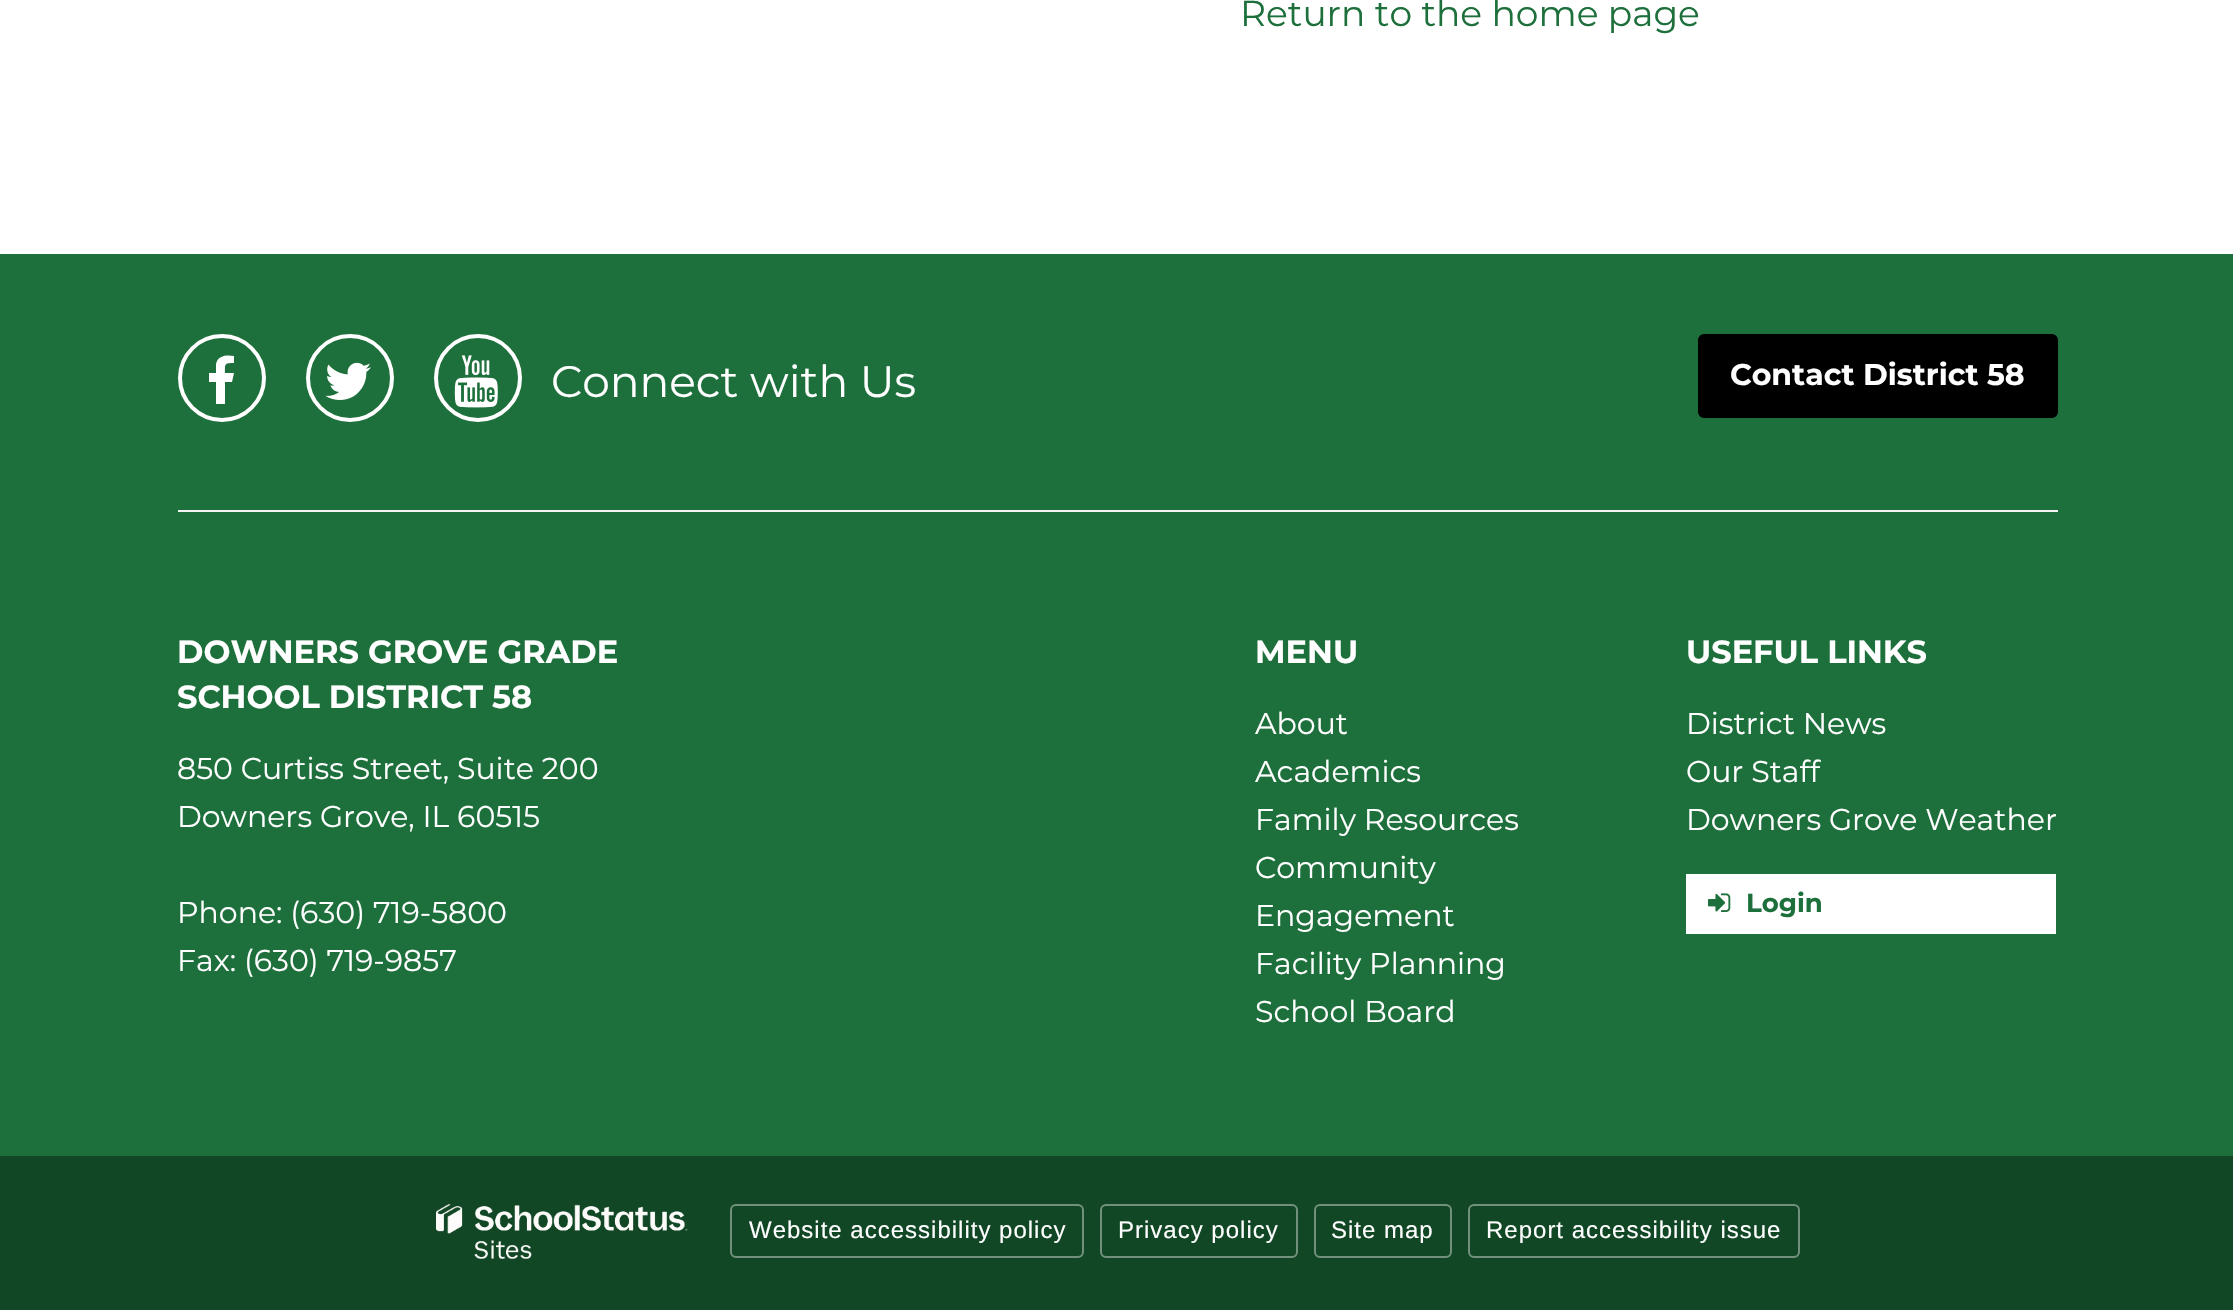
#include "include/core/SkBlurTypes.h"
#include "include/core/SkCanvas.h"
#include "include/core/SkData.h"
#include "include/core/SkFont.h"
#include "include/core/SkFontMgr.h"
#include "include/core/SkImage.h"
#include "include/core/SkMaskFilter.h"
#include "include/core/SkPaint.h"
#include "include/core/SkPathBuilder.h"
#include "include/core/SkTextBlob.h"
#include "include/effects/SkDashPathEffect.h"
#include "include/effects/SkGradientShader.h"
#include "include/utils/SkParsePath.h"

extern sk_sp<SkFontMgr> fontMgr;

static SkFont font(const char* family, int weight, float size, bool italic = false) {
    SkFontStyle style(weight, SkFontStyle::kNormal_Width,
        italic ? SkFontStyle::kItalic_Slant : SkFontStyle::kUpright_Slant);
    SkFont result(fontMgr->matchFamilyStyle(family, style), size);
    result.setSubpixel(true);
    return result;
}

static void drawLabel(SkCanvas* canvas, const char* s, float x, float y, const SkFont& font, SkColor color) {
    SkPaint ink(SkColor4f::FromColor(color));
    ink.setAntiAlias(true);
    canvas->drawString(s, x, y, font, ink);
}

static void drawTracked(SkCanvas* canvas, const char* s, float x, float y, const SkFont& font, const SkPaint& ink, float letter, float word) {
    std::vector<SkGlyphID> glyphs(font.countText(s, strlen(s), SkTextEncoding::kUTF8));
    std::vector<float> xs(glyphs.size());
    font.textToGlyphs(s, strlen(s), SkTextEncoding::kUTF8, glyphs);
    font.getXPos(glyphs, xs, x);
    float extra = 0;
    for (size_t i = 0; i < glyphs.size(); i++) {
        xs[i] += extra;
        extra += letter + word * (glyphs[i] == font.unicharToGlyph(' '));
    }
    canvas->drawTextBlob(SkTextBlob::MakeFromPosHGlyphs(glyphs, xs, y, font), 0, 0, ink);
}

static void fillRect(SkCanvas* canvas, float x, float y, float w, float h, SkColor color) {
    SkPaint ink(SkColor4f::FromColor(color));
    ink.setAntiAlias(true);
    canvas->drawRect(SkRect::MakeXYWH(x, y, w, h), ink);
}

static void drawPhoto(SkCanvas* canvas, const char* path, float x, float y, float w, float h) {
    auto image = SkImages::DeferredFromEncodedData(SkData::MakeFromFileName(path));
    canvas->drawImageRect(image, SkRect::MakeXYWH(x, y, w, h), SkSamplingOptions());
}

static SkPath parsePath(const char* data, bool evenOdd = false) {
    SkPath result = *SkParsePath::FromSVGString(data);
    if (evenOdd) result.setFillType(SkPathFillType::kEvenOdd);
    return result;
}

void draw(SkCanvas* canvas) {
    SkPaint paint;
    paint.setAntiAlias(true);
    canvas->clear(0xFFFFFFFF);
    SkFont font1 = font("Montserrat", 400, 36);
    drawLabel(canvas, "Return to the home page", 1240, 26, font1, 0xFF1D6F3B);
    fillRect(canvas, 0, 254, 2233, 902, 0xFF1D6F3B);
    paint.setStroke(true);
    paint.setStrokeWidth(4);
    paint.setColor(0xFFFFFFFF);
    canvas->drawCircle(222, 378, 42, paint);
    paint.setStroke(false);
    canvas->drawPath(parsePath("M234 356V363C224 363 225 364 225 373H234L232 382H225V404H216V382H209V373H216V364C218 355 227 355 234 356Z"), paint);
    paint.setStroke(true);
    canvas->drawCircle(350, 378, 42, paint);
    drawPhoto(canvas, "assets/img1.png", 325, 362, 46, 38);
    canvas->drawCircle(478, 378, 42, paint);
    drawPhoto(canvas, "assets/img2.png", 454, 355, 44, 53);
    SkFont font2 = font("Montserrat", 400, 44);
    drawLabel(canvas, "Connect with Us", 551, 397, font2, 0xFFFFFFFF);
    paint.setStroke(false);
    paint.setColor(0xFF000000);
    canvas->drawRoundRect(SkRect::MakeXYWH(1699, 335, 358, 82), 5, 5, paint);
    paint.setStroke(true);
    paint.setStrokeWidth(2);
    canvas->drawRoundRect(SkRect::MakeXYWH(1699, 335, 358, 82), 5, 5, paint);
    SkFont font3 = font("Montserrat", 700, 30);
    drawLabel(canvas, "Contact District 58", 1730, 385, font3, 0xFFFFFFFF);
    fillRect(canvas, 178, 510, 1880, 2, 0xFFF4F4F4);
    SkFont font4 = font("Montserrat", 700, 32);
    drawLabel(canvas, "DOWNERS GROVE GRADE", 177, 663, font4, 0xFFFFFFFF);
    drawLabel(canvas, "SCHOOL DISTRICT 58", 177, 708, font4, 0xFFFFFFFF);
    SkFont font5 = font("Montserrat", 400, 30);
    drawLabel(canvas, "850 Curtiss Street, Suite 200", 177, 779, font5, 0xFFFFFFFF);
    drawLabel(canvas, "Downers Grove, IL 60515", 177, 827, font5, 0xFFFFFFFF);
    drawLabel(canvas, "Phone: (630) 719-5800", 177, 923, font5, 0xFFFFFFFF);
    drawLabel(canvas, "Fax: (630) 719-9857", 177, 971, font5, 0xFFFFFFFF);
    drawLabel(canvas, "MENU", 1255, 663, font4, 0xFFFFFFFF);
    drawLabel(canvas, "About", 1255, 734, font5, 0xFFFFFFFF);
    drawLabel(canvas, "Academics", 1255, 782, font5, 0xFFFFFFFF);
    drawLabel(canvas, "Family Resources", 1255, 830, font5, 0xFFFFFFFF);
    drawLabel(canvas, "Community", 1255, 878, font5, 0xFFFFFFFF);
    drawLabel(canvas, "Engagement", 1255, 926, font5, 0xFFFFFFFF);
    drawLabel(canvas, "Facility Planning", 1255, 974, font5, 0xFFFFFFFF);
    drawLabel(canvas, "School Board", 1255, 1022, font5, 0xFFFFFFFF);
    drawLabel(canvas, "USEFUL LINKS", 1686, 663, font4, 0xFFFFFFFF);
    drawLabel(canvas, "District News", 1686, 734, font5, 0xFFFFFFFF);
    drawLabel(canvas, "Our Staff", 1686, 782, font5, 0xFFFFFFFF);
    drawLabel(canvas, "Downers Grove Weather", 1686, 830, font5, 0xFFFFFFFF);
    fillRect(canvas, 1686, 874, 370, 60, 0xFFFFFFFF);
    drawPhoto(canvas, "assets/img3.png", 1708, 893, 23, 19);
    SkFont font6 = font("Montserrat", 700, 26);
    drawLabel(canvas, "Login", 1746, 912, font6, 0xFF1D6F3B);
    fillRect(canvas, 0, 1156, 2233, 154, 0xFF124726);
    drawPhoto(canvas, "assets/img4.png", 436, 1204, 252, 55);
    paint.setColor(0xFF71917D);
    canvas->drawRoundRect(SkRect::MakeXYWH(731, 1205, 352, 52), 5, 5, paint);
    SkFont font7 = font("Liberation Sans", 400, 24);
    paint.setStroke(false);
    paint.setColor(0xFFFFFFFF);
    drawTracked(canvas, "Website accessibility policy", 749, 1238, font7, paint, 1, 0);
    paint.setStroke(true);
    paint.setColor(0xFF71917D);
    canvas->drawRoundRect(SkRect::MakeXYWH(1101, 1205, 196, 52), 5, 5, paint);
    paint.setStroke(false);
    paint.setColor(0xFFFFFFFF);
    drawTracked(canvas, "Privacy policy", 1118, 1238, font7, paint, 1, 0);
    paint.setStroke(true);
    paint.setColor(0xFF71917D);
    canvas->drawRoundRect(SkRect::MakeXYWH(1315, 1205, 136, 52), 5, 5, paint);
    paint.setStroke(false);
    paint.setColor(0xFFFFFFFF);
    drawTracked(canvas, "Site map", 1331, 1238, font7, paint, 1, 0);
    paint.setStroke(true);
    paint.setColor(0xFF71917D);
    canvas->drawRoundRect(SkRect::MakeXYWH(1469, 1205, 330, 52), 5, 5, paint);
    paint.setStroke(false);
    paint.setColor(0xFFFFFFFF);
    drawTracked(canvas, "Report accessibility issue", 1486, 1238, font7, paint, 1, 0);
}
